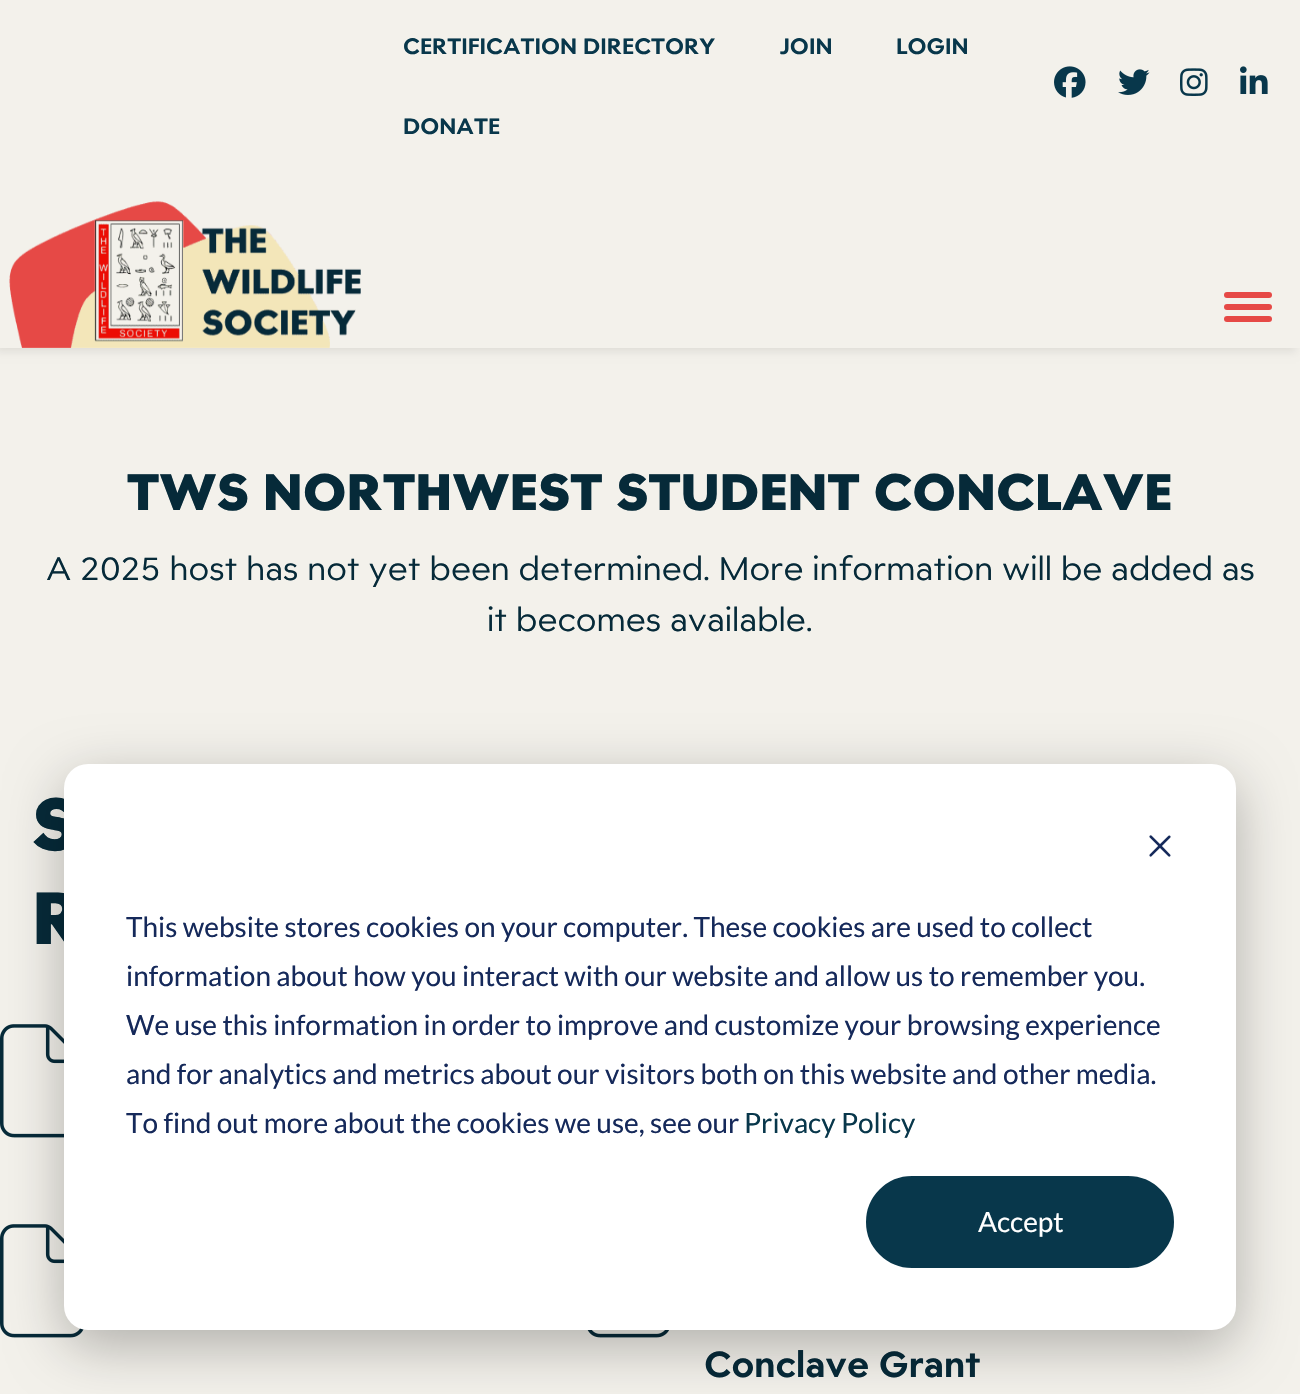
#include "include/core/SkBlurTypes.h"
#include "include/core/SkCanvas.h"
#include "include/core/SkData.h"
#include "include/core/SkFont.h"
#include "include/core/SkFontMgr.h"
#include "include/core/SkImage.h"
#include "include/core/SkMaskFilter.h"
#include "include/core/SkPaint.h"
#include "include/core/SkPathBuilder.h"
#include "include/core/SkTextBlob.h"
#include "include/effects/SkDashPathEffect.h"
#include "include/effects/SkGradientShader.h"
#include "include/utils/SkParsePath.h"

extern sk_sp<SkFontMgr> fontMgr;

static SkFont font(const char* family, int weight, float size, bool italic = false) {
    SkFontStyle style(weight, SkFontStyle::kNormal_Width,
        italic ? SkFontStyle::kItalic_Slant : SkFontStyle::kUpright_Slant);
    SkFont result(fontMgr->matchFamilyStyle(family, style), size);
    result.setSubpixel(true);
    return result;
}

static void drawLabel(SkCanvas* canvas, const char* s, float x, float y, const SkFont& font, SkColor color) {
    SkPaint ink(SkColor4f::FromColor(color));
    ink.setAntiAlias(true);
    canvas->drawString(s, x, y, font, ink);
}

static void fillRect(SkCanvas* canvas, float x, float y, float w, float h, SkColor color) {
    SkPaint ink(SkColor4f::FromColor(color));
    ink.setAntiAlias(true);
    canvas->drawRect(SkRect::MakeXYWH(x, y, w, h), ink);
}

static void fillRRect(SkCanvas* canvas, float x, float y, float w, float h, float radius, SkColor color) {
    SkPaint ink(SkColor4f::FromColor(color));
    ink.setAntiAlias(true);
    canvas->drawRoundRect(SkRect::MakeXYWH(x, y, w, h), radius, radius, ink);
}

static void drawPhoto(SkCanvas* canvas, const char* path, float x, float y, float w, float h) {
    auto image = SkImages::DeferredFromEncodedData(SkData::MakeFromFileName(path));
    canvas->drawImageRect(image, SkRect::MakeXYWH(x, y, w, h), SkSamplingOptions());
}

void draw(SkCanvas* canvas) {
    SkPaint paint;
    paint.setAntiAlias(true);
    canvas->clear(0xFFF3F1EB);
    paint.setColor(0x14000000);
    paint.setMaskFilter(SkMaskFilter::MakeBlur(kNormal_SkBlurStyle, 4));
    canvas->drawRect(SkRect::MakeXYWH(-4, 4, 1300, 348), paint);
    paint.setMaskFilter(nullptr);
    fillRect(canvas, 0, 0, 1300, 348, 0xFFF3F1EB);
    SkFont font1 = font("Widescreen", 700, 21.75f);
    drawLabel(canvas, "CERTIFICATION DIRECTORY", 403, 54, font1, 0xFF08374B);
    drawLabel(canvas, "JOIN", 780, 54, font1, 0xFF08374B);
    drawLabel(canvas, "LOGIN", 896, 54, font1, 0xFF08374B);
    drawLabel(canvas, "DONATE", 403, 134, font1, 0xFF08374B);
    drawPhoto(canvas, "assets/img1.png", 1054, 66, 32, 32);
    drawPhoto(canvas, "assets/img2.png", 1118, 69, 32, 26);
    drawPhoto(canvas, "assets/img3.png", 1180, 68, 28, 28);
    drawPhoto(canvas, "assets/img4.png", 1240, 66, 28, 28);
    fillRRect(canvas, 1224, 292, 48, 6, 3, 0xFFE64946);
    fillRRect(canvas, 1224, 304, 48, 6, 3, 0xFFE64946);
    fillRRect(canvas, 1224, 316, 48, 6, 3, 0xFFE64946);
    drawPhoto(canvas, "assets/img5.png", 9, 201, 352, 147);
    SkFont font2 = font("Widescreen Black", 900, 50);
    drawLabel(canvas, "TWS NORTHWEST STUDENT CONCLAVE", 127, 510, font2, 0xFF062A39);
    SkFont font3 = font("Widescreen", 400, 32);
    drawLabel(canvas, "A 2025 host has not yet been determined. More information will be added as", 46, 580, font3, 0xFF062A39);
    drawLabel(canvas, "it becomes available.", 487, 631, font3, 0xFF062A39);
    SkFont font4 = font("Widescreen Black", 900, 72);
    drawLabel(canvas, "S", 32, 850, font4, 0xFF062A39);
    drawLabel(canvas, "R", 32, 944, font4, 0xFF062A39);
    drawPhoto(canvas, "assets/img6.png", 0, 1024, 64, 114);
    drawPhoto(canvas, "assets/img7.png", 0, 1224, 84, 114);
    drawPhoto(canvas, "assets/img8.png", 587, 1330, 82, 8);
    SkFont font5 = font("Widescreen", 700, 35.25f);
    drawLabel(canvas, "Conclave Grant", 704, 1377, font5, 0xFF062A39);
    paint.setColor(0x47000000);
    paint.setMaskFilter(SkMaskFilter::MakeBlur(kNormal_SkBlurStyle, 28));
    canvas->drawRoundRect(SkRect::MakeXYWH(64, 780, 1172, 566), 24, 24, paint);
    paint.setMaskFilter(nullptr);
    fillRRect(canvas, 64, 764, 1172, 566, 24, 0xFFFFFFFF);
    drawPhoto(canvas, "assets/img9.png", 1149, 835, 22, 22);
    SkFont font6 = font("Lato", 400, 28);
    drawLabel(canvas, "This website stores cookies on your computer. These cookies are used to collect", 126, 937, font6, 0xFF15295A);
    drawLabel(canvas, "information about how you interact with our website and allow us to remember you.", 126, 986, font6, 0xFF15295A);
    drawLabel(canvas, "We use this information in order to improve and customize your browsing experience", 126, 1035, font6, 0xFF15295A);
    drawLabel(canvas, "and for analytics and metrics about our visitors both on this website and other media.", 126, 1084, font6, 0xFF15295A);
    drawLabel(canvas, "To find out more about the cookies we use, see our", 126, 1133, font6, 0xFF15295A);
    drawLabel(canvas, "Privacy Policy", 744, 1133, font6, 0xFF08374B);
    paint.setColor(0xFF08374B);
    canvas->drawRoundRect(SkRect::MakeXYWH(867, 1177, 306, 90), 45, 45, paint);
    paint.setStroke(true);
    paint.setStrokeWidth(2);
    canvas->drawRoundRect(SkRect::MakeXYWH(867, 1177, 306, 90), 45, 45, paint);
    drawLabel(canvas, "Accept", 978, 1232, font6, 0xFFFFFFFF);
}
